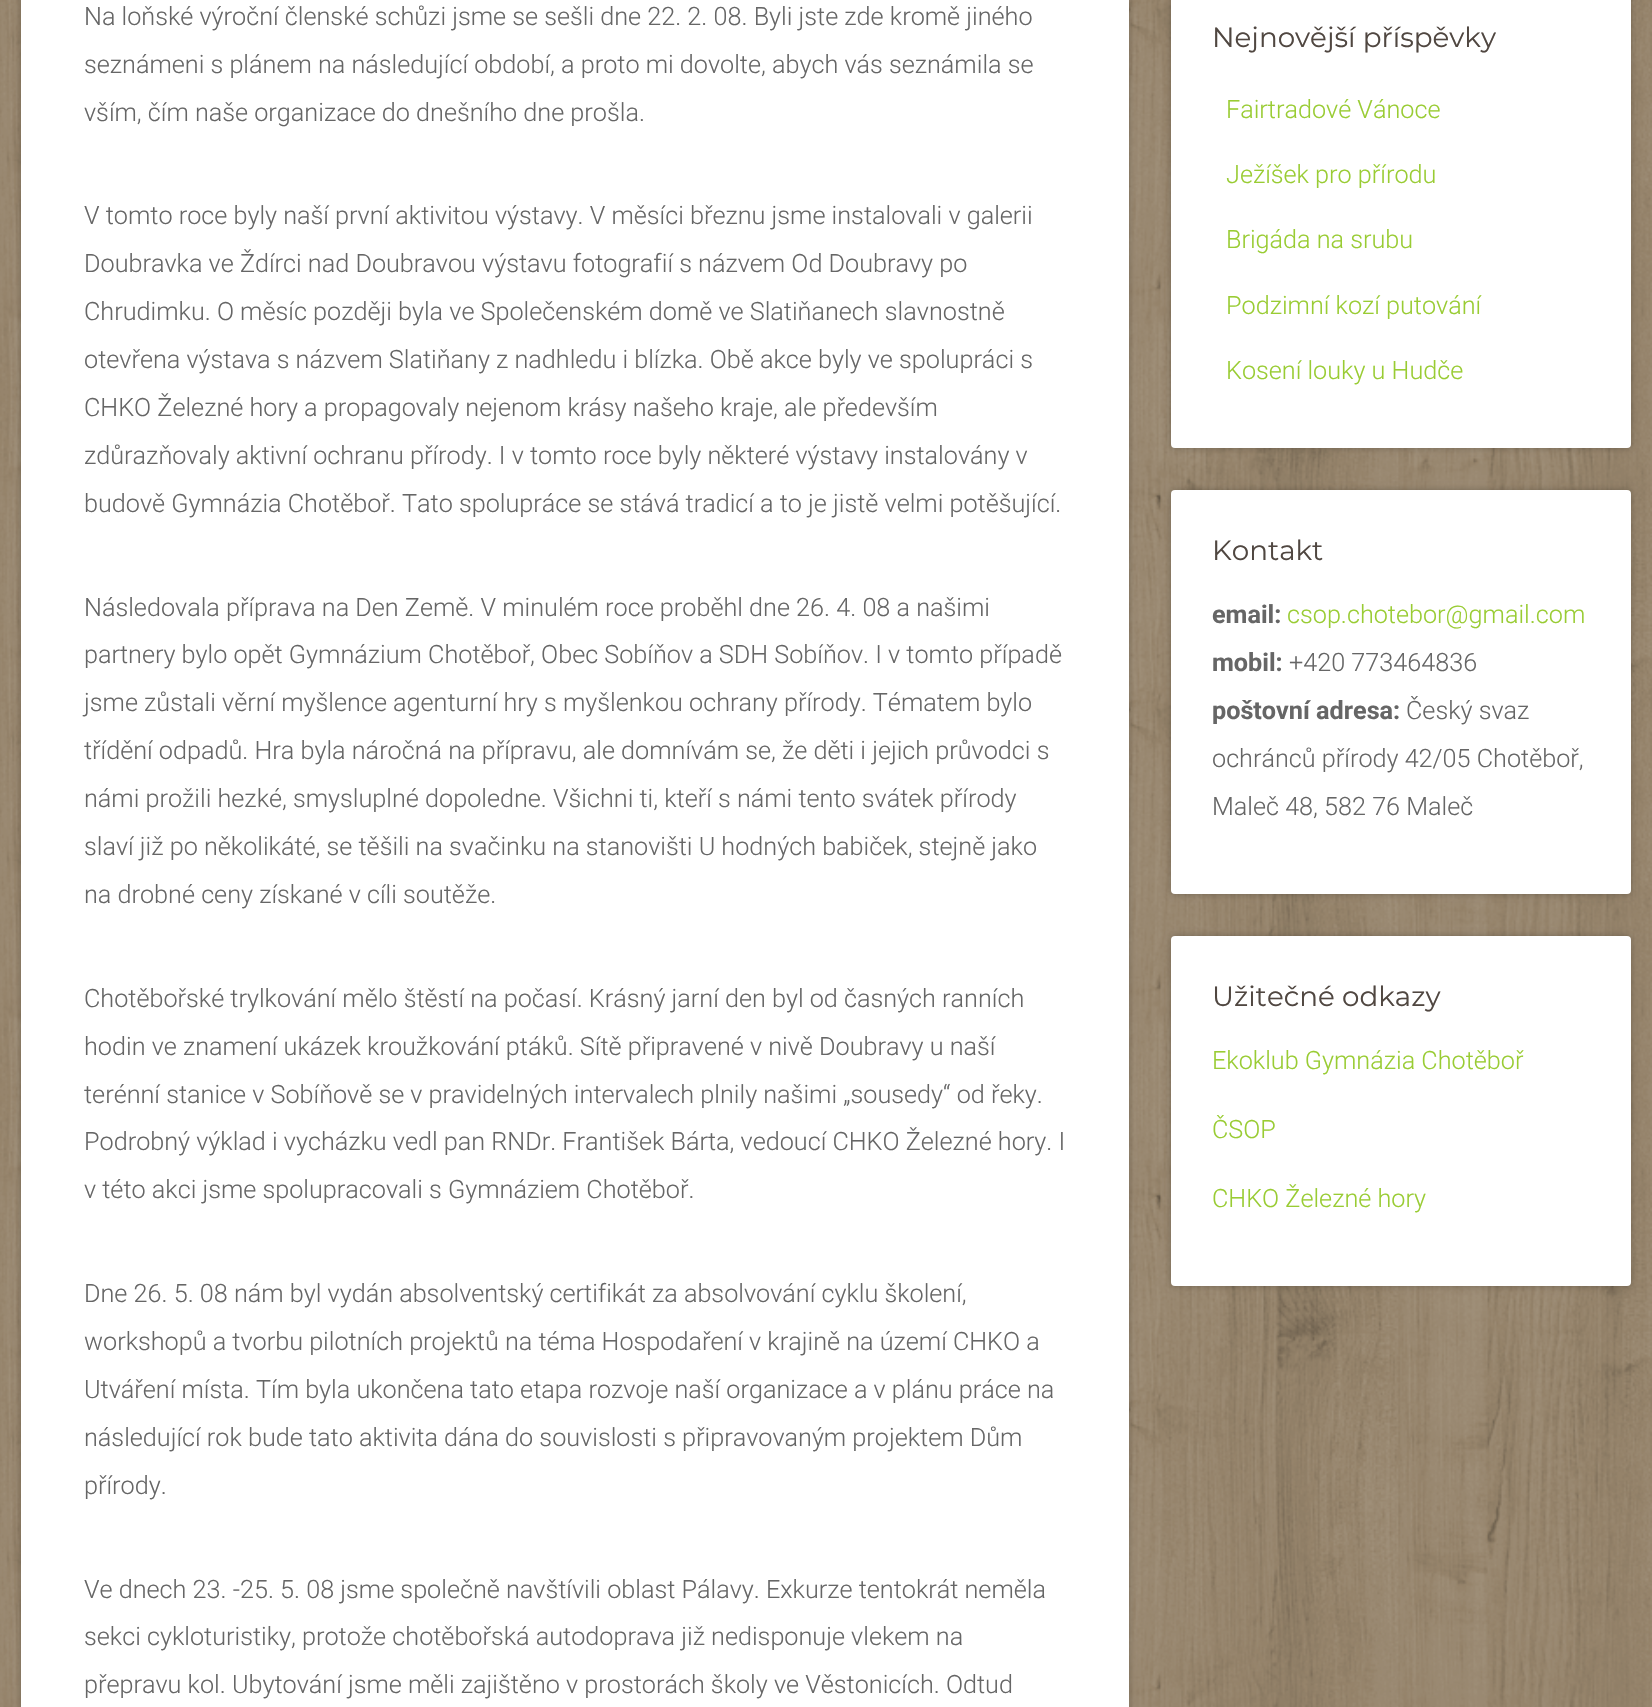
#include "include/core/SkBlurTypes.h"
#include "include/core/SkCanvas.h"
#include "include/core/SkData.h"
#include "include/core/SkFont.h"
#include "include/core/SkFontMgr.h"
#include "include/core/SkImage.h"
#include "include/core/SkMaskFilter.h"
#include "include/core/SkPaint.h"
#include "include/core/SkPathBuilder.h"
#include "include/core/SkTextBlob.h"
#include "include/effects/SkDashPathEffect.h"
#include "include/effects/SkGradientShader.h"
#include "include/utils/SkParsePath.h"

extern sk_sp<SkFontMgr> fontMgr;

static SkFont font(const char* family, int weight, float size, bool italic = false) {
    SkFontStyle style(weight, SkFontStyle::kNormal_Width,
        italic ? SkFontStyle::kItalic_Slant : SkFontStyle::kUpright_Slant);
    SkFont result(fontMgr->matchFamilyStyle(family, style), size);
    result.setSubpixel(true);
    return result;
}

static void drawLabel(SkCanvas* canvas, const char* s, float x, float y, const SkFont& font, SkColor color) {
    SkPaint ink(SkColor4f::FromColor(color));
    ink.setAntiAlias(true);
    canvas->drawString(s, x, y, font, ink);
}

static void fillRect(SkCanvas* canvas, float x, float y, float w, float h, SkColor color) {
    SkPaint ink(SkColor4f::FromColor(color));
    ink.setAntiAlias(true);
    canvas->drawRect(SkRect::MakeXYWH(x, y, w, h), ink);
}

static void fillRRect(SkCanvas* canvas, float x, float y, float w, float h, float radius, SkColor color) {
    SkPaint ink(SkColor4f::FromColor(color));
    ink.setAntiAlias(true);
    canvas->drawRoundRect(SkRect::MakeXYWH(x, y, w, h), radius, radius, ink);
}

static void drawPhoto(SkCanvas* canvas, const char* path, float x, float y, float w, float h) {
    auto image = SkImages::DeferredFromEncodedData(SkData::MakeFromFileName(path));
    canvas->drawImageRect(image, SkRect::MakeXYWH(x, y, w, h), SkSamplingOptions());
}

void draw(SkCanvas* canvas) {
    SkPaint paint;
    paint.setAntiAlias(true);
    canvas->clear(0xFFFFFFFF);
    drawPhoto(canvas, "assets/img1.png", 0, 0, 1652, 1707);
    paint.setColor(0x3D000000);
    paint.setMaskFilter(SkMaskFilter::MakeBlur(kNormal_SkBlurStyle, 3.5f));
    canvas->drawRoundRect(SkRect::MakeXYWH(21, -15, 1108, 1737), 4, 4, paint);
    paint.setMaskFilter(nullptr);
    fillRect(canvas, 21, 0, 1108, 1707, 0xFFFFFFFF);
    SkFont font1 = font("Roboto", 300, 25.2f);
    drawLabel(canvas, "Na loňské výroční členské schůzi jsme se sešli dne 22. 2. 08. Byli jste zde kromě jiného", 84, 25, font1, 0xFF666666);
    drawLabel(canvas, "seznámeni s plánem na následující období, a proto mi dovolte, abych vás seznámila se", 84, 73, font1, 0xFF666666);
    drawLabel(canvas, "vším, čím naše organizace do dnešního dne prošla.", 84, 121, font1, 0xFF666666);
    drawLabel(canvas, "V tomto roce byly naší první aktivitou výstavy. V měsíci březnu jsme instalovali v galerii", 84, 224, font1, 0xFF666666);
    drawLabel(canvas, "Doubravka ve Ždírci nad Doubravou výstavu fotografií s názvem Od Doubravy po", 84, 272, font1, 0xFF666666);
    drawLabel(canvas, "Chrudimku. O měsíc později byla ve Společenském domě ve Slatiňanech slavnostně", 84, 320, font1, 0xFF666666);
    drawLabel(canvas, "otevřena výstava s názvem Slatiňany z nadhledu i blízka. Obě akce byly ve spolupráci s", 84, 368, font1, 0xFF666666);
    drawLabel(canvas, "CHKO Železné hory a propagovaly nejenom krásy našeho kraje, ale především", 84, 416, font1, 0xFF666666);
    drawLabel(canvas, "zdůrazňovaly aktivní ochranu přírody. I v tomto roce byly některé výstavy instalovány v", 84, 464, font1, 0xFF666666);
    drawLabel(canvas, "budově Gymnázia Chotěboř. Tato spolupráce se stává tradicí a to je jistě velmi potěšující.", 84, 512, font1, 0xFF666666);
    drawLabel(canvas, "Následovala příprava na Den Země. V minulém roce proběhl dne 26. 4. 08 a našimi", 84, 616, font1, 0xFF666666);
    drawLabel(canvas, "partnery bylo opět Gymnázium Chotěboř, Obec Sobíňov a SDH Sobíňov. I v tomto případě", 84, 663, font1, 0xFF666666);
    drawLabel(canvas, "jsme zůstali věrní myšlence agenturní hry s myšlenkou ochrany přírody. Tématem bylo", 84, 711, font1, 0xFF666666);
    drawLabel(canvas, "třídění odpadů. Hra byla náročná na přípravu, ale domnívám se, že děti i jejich průvodci s", 84, 759, font1, 0xFF666666);
    drawLabel(canvas, "námi prožili hezké, smysluplné dopoledne. Všichni ti, kteří s námi tento svátek přírody", 84, 807, font1, 0xFF666666);
    drawLabel(canvas, "slaví již po několikáté, se těšili na svačinku na stanovišti U hodných babiček, stejně jako", 84, 855, font1, 0xFF666666);
    drawLabel(canvas, "na drobné ceny získané v cíli soutěže.", 84, 903, font1, 0xFF666666);
    drawLabel(canvas, "Chotěbořské trylkování mělo štěstí na počasí. Krásný jarní den byl od časných ranních", 84, 1007, font1, 0xFF666666);
    drawLabel(canvas, "hodin ve znamení ukázek kroužkování ptáků. Sítě připravené v nivě Doubravy u naší", 84, 1055, font1, 0xFF666666);
    drawLabel(canvas, "terénní stanice v Sobíňově se v pravidelných intervalech plnily našimi „sousedy“ od řeky.", 84, 1103, font1, 0xFF666666);
    drawLabel(canvas, "Podrobný výklad i vycházku vedl pan RNDr. František Bárta, vedoucí CHKO Železné hory. I", 84, 1150, font1, 0xFF666666);
    drawLabel(canvas, "v této akci jsme spolupracovali s Gymnáziem Chotěboř.", 84, 1198, font1, 0xFF666666);
    drawLabel(canvas, "Dne 26. 5. 08 nám byl vydán absolventský certifikát za absolvování cyklu školení,", 84, 1302, font1, 0xFF666666);
    drawLabel(canvas, "workshopů a tvorbu pilotních projektů na téma Hospodaření v krajině na území CHKO a", 84, 1350, font1, 0xFF666666);
    drawLabel(canvas, "Utváření místa. Tím byla ukončena tato etapa rozvoje naší organizace a v plánu práce na", 84, 1398, font1, 0xFF666666);
    drawLabel(canvas, "následující rok bude tato aktivita dána do souvislosti s připravovaným projektem Dům", 84, 1446, font1, 0xFF666666);
    drawLabel(canvas, "přírody.", 84, 1494, font1, 0xFF666666);
    drawLabel(canvas, "Ve dnech 23. -25. 5. 08 jsme společně navštívili oblast Pálavy. Exkurze tentokrát neměla", 84, 1598, font1, 0xFF666666);
    drawLabel(canvas, "sekci cykloturistiky, protože chotěbořská autodoprava již nedisponuje vlekem na", 84, 1645, font1, 0xFF666666);
    drawLabel(canvas, "přepravu kol. Ubytování jsme měli zajištěno v prostorách školy ve Věstonicích. Odtud", 84, 1693, font1, 0xFF666666);
    paint.setMaskFilter(SkMaskFilter::MakeBlur(kNormal_SkBlurStyle, 3.5f));
    canvas->drawRoundRect(SkRect::MakeXYWH(1171, -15, 460, 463), 4, 4, paint);
    paint.setMaskFilter(nullptr);
    fillRRect(canvas, 1171, -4, 460, 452, 4, 0xFFFFFFFF);
    SkFont font2 = font("Montserrat", 400, 27.75f);
    drawLabel(canvas, "Nejnovější příspěvky", 1212, 47, font2, 0xFF504741);
    drawLabel(canvas, "Fairtradové Vánoce", 1226, 118, font1, 0xFF99CC33);
    drawLabel(canvas, "Ježíšek pro přírodu", 1226, 183, font1, 0xFF99CC33);
    drawLabel(canvas, "Brigáda na srubu", 1226, 248, font1, 0xFF99CC33);
    drawLabel(canvas, "Podzimní kozí putování", 1226, 314, font1, 0xFF99CC33);
    drawLabel(canvas, "Kosení louky u Hudče", 1226, 379, font1, 0xFF99CC33);
    paint.setMaskFilter(SkMaskFilter::MakeBlur(kNormal_SkBlurStyle, 3.5f));
    canvas->drawRoundRect(SkRect::MakeXYWH(1171, 490, 460, 404), 4, 4, paint);
    paint.setMaskFilter(nullptr);
    fillRRect(canvas, 1171, 490, 460, 404, 4, 0xFFFFFFFF);
    drawLabel(canvas, "Kontakt", 1212, 560, font2, 0xFF504741);
    SkFont font3 = font("Roboto", 700, 25.2f);
    drawLabel(canvas, "email:", 1212, 623, font3, 0xFF666666);
    drawLabel(canvas, "csop.chotebor@gmail.com", 1287, 623, font1, 0xFF99CC33);
    drawLabel(canvas, "mobil:", 1212, 671, font3, 0xFF666666);
    drawLabel(canvas, "+420 773464836", 1289, 671, font1, 0xFF666666);
    drawLabel(canvas, "poštovní adresa:", 1212, 719, font3, 0xFF666666);
    drawLabel(canvas, "Český svaz", 1406, 719, font1, 0xFF666666);
    drawLabel(canvas, "ochránců přírody 42/05 Chotěboř,", 1212, 767, font1, 0xFF666666);
    drawLabel(canvas, "Maleč 48, 582 76 Maleč", 1212, 815, font1, 0xFF666666);
    paint.setMaskFilter(SkMaskFilter::MakeBlur(kNormal_SkBlurStyle, 3.5f));
    canvas->drawRoundRect(SkRect::MakeXYWH(1171, 936, 460, 350), 4, 4, paint);
    paint.setMaskFilter(nullptr);
    fillRRect(canvas, 1171, 936, 460, 350, 4, 0xFFFFFFFF);
    drawLabel(canvas, "Užitečné odkazy", 1212, 1006, font2, 0xFF504741);
    drawLabel(canvas, "Ekoklub Gymnázia Chotěboř", 1212, 1069, font1, 0xFF99CC33);
    drawLabel(canvas, "ČSOP", 1212, 1138, font1, 0xFF99CC33);
    drawLabel(canvas, "CHKO Železné hory", 1212, 1207, font1, 0xFF99CC33);
}
